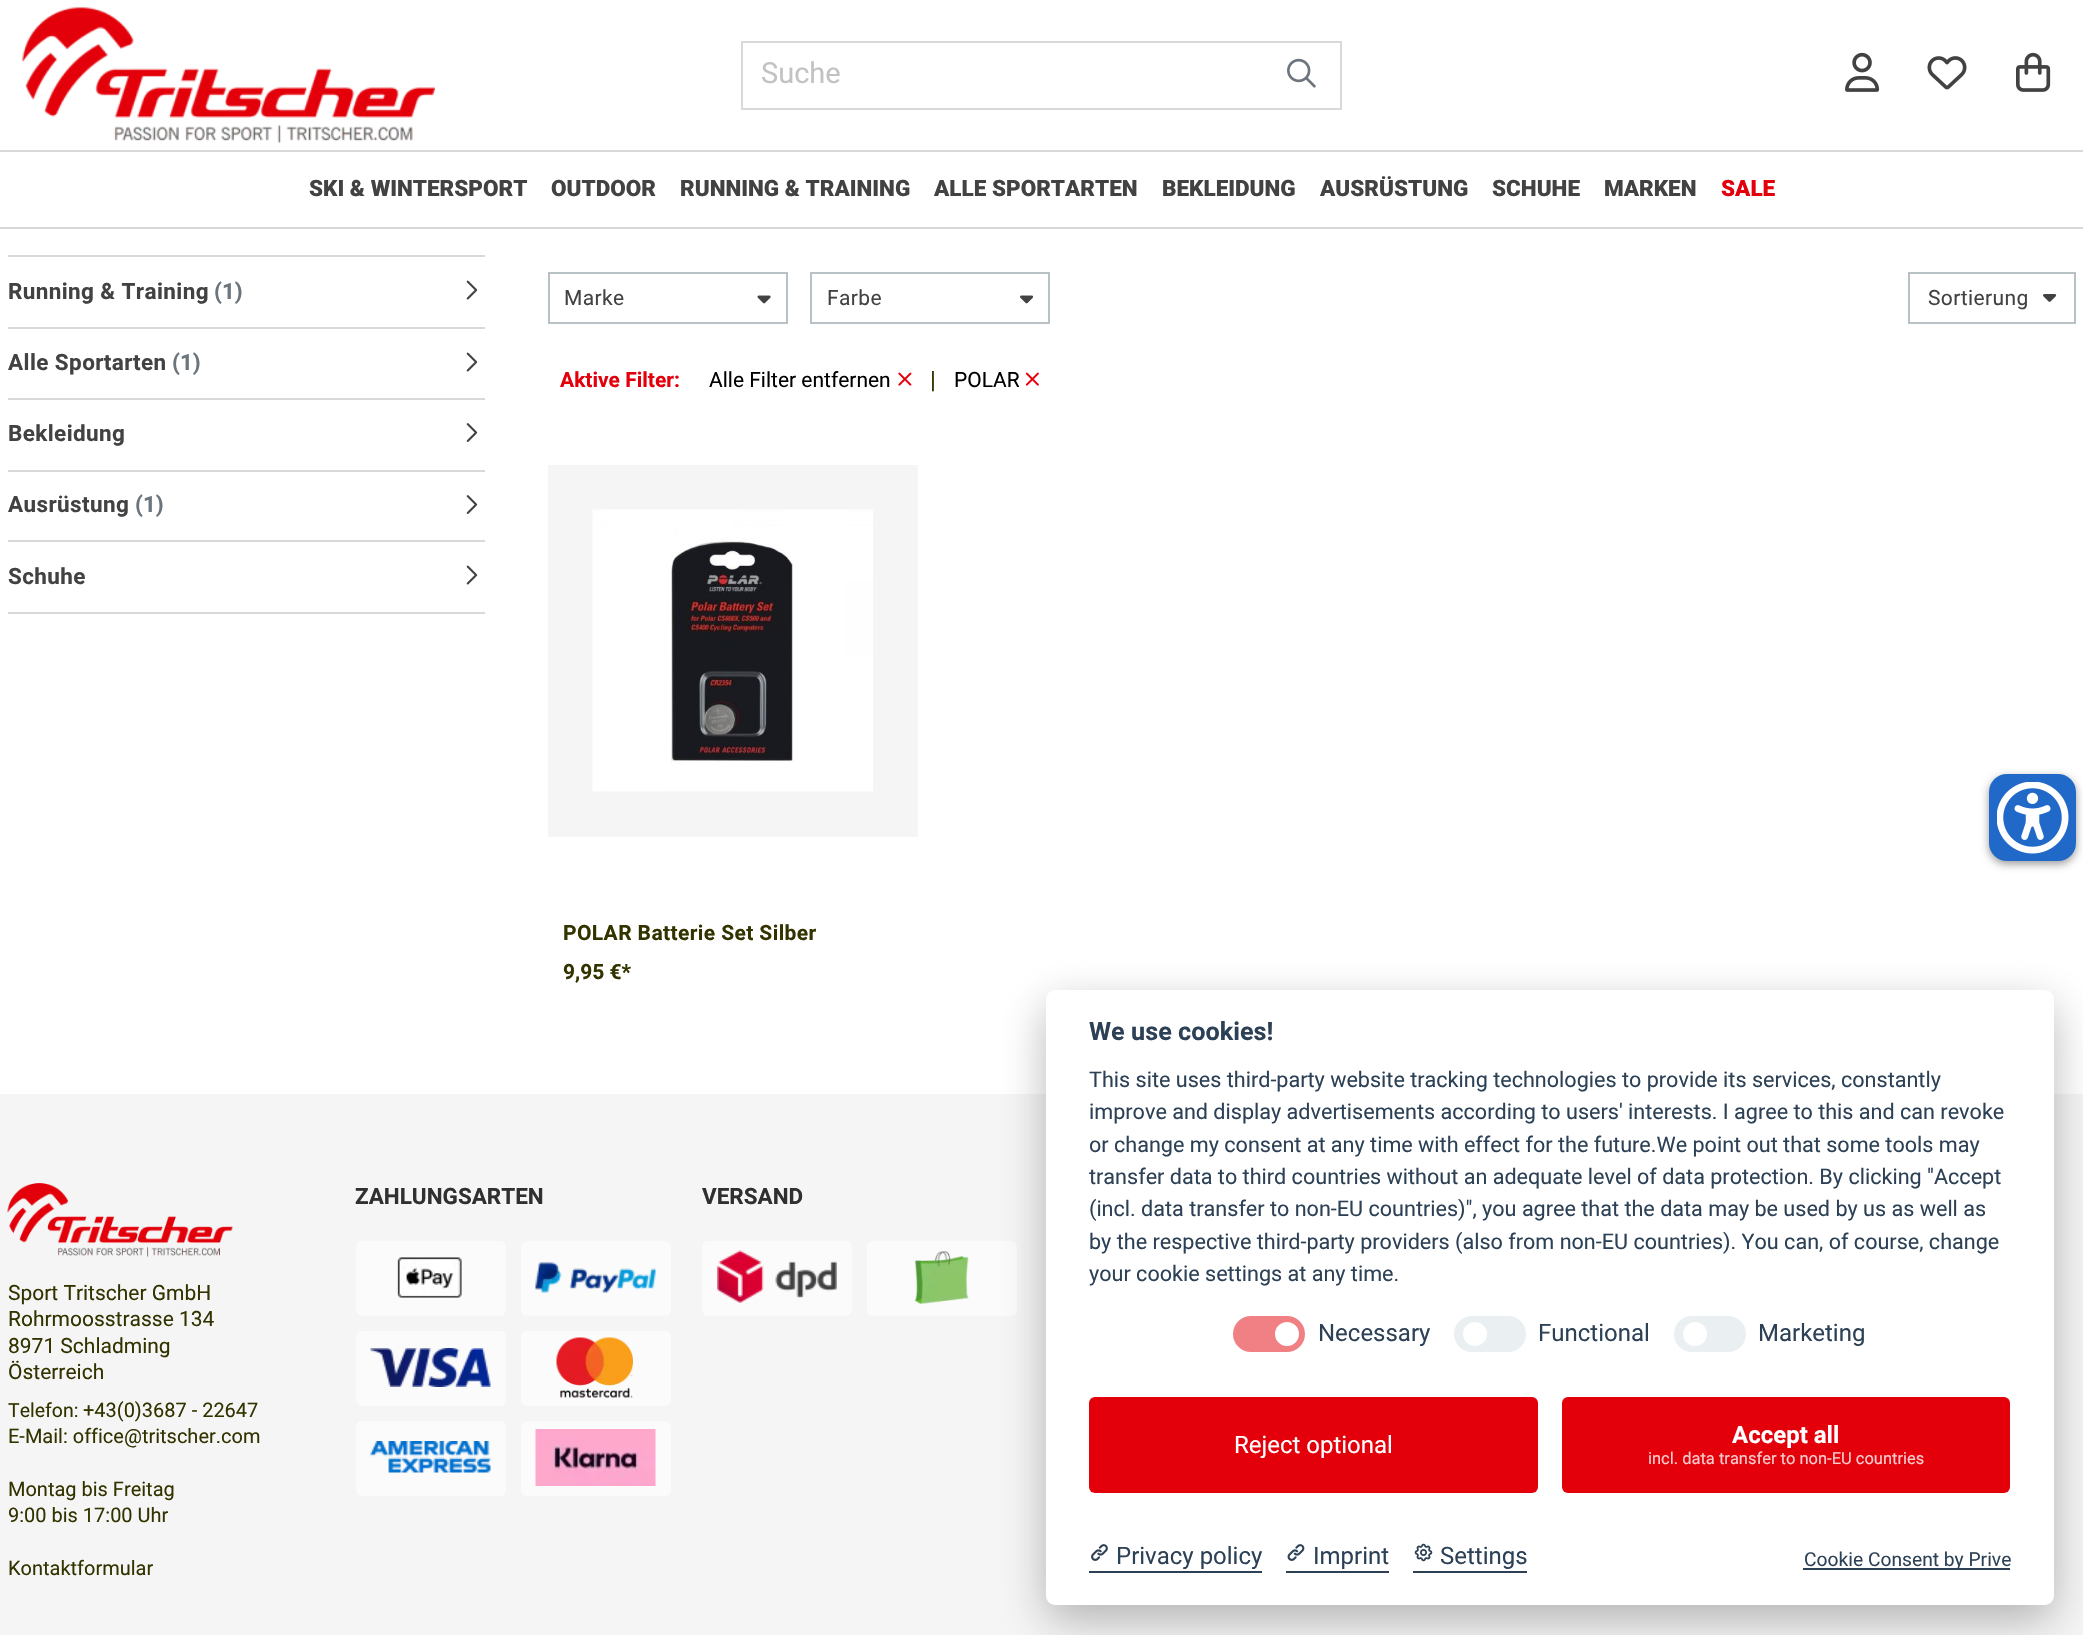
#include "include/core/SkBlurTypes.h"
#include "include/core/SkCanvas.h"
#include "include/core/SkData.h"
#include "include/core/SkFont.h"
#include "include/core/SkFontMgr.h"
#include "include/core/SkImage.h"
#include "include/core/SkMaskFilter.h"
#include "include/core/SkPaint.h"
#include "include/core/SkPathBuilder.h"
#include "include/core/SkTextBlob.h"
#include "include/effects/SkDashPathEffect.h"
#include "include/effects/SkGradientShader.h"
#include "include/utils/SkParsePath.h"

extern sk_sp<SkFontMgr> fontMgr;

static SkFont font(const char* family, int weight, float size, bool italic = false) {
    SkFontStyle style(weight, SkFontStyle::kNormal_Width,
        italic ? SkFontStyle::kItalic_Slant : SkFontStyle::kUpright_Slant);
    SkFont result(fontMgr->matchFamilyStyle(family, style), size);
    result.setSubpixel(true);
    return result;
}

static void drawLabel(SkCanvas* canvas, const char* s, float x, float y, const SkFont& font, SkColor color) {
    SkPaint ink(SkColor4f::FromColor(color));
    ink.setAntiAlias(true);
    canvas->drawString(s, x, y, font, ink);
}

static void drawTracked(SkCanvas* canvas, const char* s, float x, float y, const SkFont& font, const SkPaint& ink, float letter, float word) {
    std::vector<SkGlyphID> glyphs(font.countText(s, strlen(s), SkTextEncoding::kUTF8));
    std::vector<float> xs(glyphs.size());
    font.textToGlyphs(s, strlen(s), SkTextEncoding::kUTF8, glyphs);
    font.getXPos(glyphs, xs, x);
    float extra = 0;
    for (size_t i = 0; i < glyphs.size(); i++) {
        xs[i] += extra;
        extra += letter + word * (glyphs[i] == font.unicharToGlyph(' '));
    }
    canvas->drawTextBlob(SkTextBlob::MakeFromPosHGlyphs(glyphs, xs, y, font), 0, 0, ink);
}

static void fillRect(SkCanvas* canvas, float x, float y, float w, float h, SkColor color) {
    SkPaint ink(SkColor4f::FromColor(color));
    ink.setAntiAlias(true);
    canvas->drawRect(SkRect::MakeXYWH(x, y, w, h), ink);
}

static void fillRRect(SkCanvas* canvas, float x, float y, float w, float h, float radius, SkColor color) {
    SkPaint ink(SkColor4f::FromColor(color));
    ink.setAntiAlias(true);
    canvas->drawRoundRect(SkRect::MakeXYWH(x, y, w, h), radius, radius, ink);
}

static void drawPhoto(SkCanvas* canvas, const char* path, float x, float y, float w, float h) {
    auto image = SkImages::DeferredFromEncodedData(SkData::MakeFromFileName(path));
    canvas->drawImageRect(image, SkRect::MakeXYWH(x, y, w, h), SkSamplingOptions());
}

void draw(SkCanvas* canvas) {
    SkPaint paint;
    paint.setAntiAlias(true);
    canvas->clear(0xFFFFFFFF);
    fillRect(canvas, 0, 227, 2083, 2, 0xFFD9D9D9);
    drawPhoto(canvas, "assets/img1.png", 22, 7, 413, 136);
    paint.setStroke(true);
    paint.setStrokeWidth(2);
    paint.setColor(0xFFD9D9D9);
    canvas->drawRect(SkRect::MakeXYWH(742, 42, 598, 67), paint);
    SkFont font1 = font("Roboto", 400, 29);
    drawLabel(canvas, "Suche", 761, 83, font1, 0xFFC2C2C2);
    fillRect(canvas, 1339, 43, 1, 65, 0xFFFFFFFF);
    fillRect(canvas, 1341, 41, 1, 69, 0xFFD9D9D9);
    drawPhoto(canvas, "assets/img2.png", 1287, 58, 29, 30);
    drawPhoto(canvas, "assets/img3.png", 1845, 52, 35, 40);
    drawPhoto(canvas, "assets/img4.png", 1927, 56, 40, 34);
    drawPhoto(canvas, "assets/img5.png", 2016, 52, 35, 40);
    fillRect(canvas, 0, 150, 2083, 2, 0xFFD9D9D9);
    SkFont font2 = font("Roboto", 900, 22.5f);
    drawLabel(canvas, "SKI & WINTERSPORT", 309, 196, font2, 0xFF424242);
    drawLabel(canvas, "OUTDOOR", 551, 196, font2, 0xFF424242);
    drawLabel(canvas, "RUNNING & TRAINING", 680, 196, font2, 0xFF424242);
    drawLabel(canvas, "ALLE SPORTARTEN", 934, 196, font2, 0xFF424242);
    drawLabel(canvas, "BEKLEIDUNG", 1162, 196, font2, 0xFF424242);
    drawLabel(canvas, "AUSRÜSTUNG", 1320, 196, font2, 0xFF424242);
    drawLabel(canvas, "SCHUHE", 1492, 196, font2, 0xFF424242);
    drawLabel(canvas, "MARKEN", 1604, 196, font2, 0xFF424242);
    drawLabel(canvas, "SALE", 1721, 196, font2, 0xFFE3000B);
    fillRect(canvas, 8, 255, 477, 2, 0xFFD9D9D9);
    fillRect(canvas, 8, 327, 477, 2, 0xFFD9D9D9);
    SkFont font3 = font("Roboto", 700, 22.5f);
    paint.setStroke(false);
    paint.setColor(0xFF424242);
    drawTracked(canvas, "Running & Training", 8, 299, font3, paint, 0.4f, 0);
    drawLabel(canvas, "(1)", 214, 299, font3, 0xFF6C757D);
    drawPhoto(canvas, "assets/img6.png", 466, 280, 12, 20);
    fillRect(canvas, 8, 398, 477, 2, 0xFFD9D9D9);
    drawTracked(canvas, "Alle Sportarten", 8, 370, font3, paint, 0.4f, 0);
    drawLabel(canvas, "(1)", 172, 370, font3, 0xFF6C757D);
    drawPhoto(canvas, "assets/img6.png", 466, 352, 12, 20);
    fillRect(canvas, 8, 470, 477, 2, 0xFFD9D9D9);
    drawTracked(canvas, "Bekleidung", 8, 441, font3, paint, 0.4f, 0);
    drawPhoto(canvas, "assets/img7.png", 466, 423, 12, 19);
    fillRect(canvas, 8, 540, 477, 2, 0xFFD9D9D9);
    drawTracked(canvas, "Ausrüstung", 8, 512, font3, paint, 0.4f, 0);
    drawLabel(canvas, "(1)", 135, 512, font3, 0xFF6C757D);
    drawPhoto(canvas, "assets/img7.png", 466, 495, 12, 19);
    fillRect(canvas, 8, 612, 477, 2, 0xFFD9D9D9);
    drawTracked(canvas, "Schuhe", 8, 584, font3, paint, 0.4f, 0);
    drawPhoto(canvas, "assets/img6.png", 466, 565, 12, 20);
    paint.setStroke(true);
    paint.setColor(0xFFB7C1C6);
    canvas->drawRect(SkRect::MakeXYWH(549, 273, 238, 50), paint);
    SkFont font4 = font("Roboto", 400, 21);
    paint.setStroke(false);
    paint.setColor(0xFF424242);
    drawTracked(canvas, "Marke", 564, 305, font4, paint, 0.4f, 0);
    drawPhoto(canvas, "assets/img8.png", 757, 295, 14, 9);
    paint.setStroke(true);
    paint.setColor(0xFFB7C1C6);
    canvas->drawRect(SkRect::MakeXYWH(811, 273, 238, 50), paint);
    paint.setStroke(false);
    paint.setColor(0xFF424242);
    drawTracked(canvas, "Farbe", 827, 305, font4, paint, 0.4f, 0);
    drawPhoto(canvas, "assets/img9.png", 1020, 295, 14, 9);
    paint.setStroke(true);
    paint.setColor(0xFFB7C1C6);
    canvas->drawRect(SkRect::MakeXYWH(1909, 273, 166, 50), paint);
    paint.setStroke(false);
    paint.setColor(0xFF424242);
    drawTracked(canvas, "Sortierung", 1928, 305, font4, paint, 0.4f, 0);
    drawPhoto(canvas, "assets/img10.png", 2043, 294, 14, 8);
    SkFont font5 = font("Roboto", 700, 21);
    drawLabel(canvas, "Aktive Filter:", 560, 387, font5, 0xFFE3000B);
    drawLabel(canvas, "Alle Filter entfernen", 709, 387, font4, 0xFF000000);
    drawPhoto(canvas, "assets/img11.png", 898, 372, 14, 14);
    SkFont font6 = font("Roboto", 400, 24);
    drawLabel(canvas, "|", 930, 388, font6, 0xFF333300);
    drawLabel(canvas, "POLAR", 954, 387, font4, 0xFF000000);
    drawPhoto(canvas, "assets/img12.png", 1025, 372, 14, 14);
    fillRect(canvas, 548, 465, 370, 372, 0xFFF5F5F5);
    drawPhoto(canvas, "assets/img13.png", 592, 509, 281, 283);
    paint.setColor(0xFF333300);
    drawTracked(canvas, "POLAR Batterie Set Silber", 563, 940, font5, paint, 0.4f, 0);
    drawLabel(canvas, "9,95 €*", 563, 979, font5, 0xFF333300);
    paint.setColor(0x66000000);
    paint.setMaskFilter(SkMaskFilter::MakeBlur(kNormal_SkBlurStyle, 4));
    canvas->drawRoundRect(SkRect::MakeXYWH(1989, 777, 87, 87), 18, 18, paint);
    paint.setMaskFilter(nullptr);
    fillRRect(canvas, 1989, 774, 87, 87, 18, 0xFF2069C8);
    drawPhoto(canvas, "assets/img14.png", 1997, 782, 72, 72);
    fillRect(canvas, 0, 1094, 2083, 541, 0xFFF5F5F5);
    drawLabel(canvas, "ZAHLUNGSARTEN", 355, 1204, font3, 0xFF303030);
    fillRRect(canvas, 356, 1241, 150, 75, 6, 0xFFFBFBFB);
    drawPhoto(canvas, "assets/img15.png", 397, 1257, 65, 41);
    fillRRect(canvas, 521, 1241, 150, 75, 6, 0xFFFBFBFB);
    drawPhoto(canvas, "assets/img16.png", 535, 1262, 121, 31);
    fillRRect(canvas, 356, 1331, 150, 75, 6, 0xFFFBFBFB);
    drawPhoto(canvas, "assets/img17.png", 370, 1348, 121, 39);
    fillRRect(canvas, 521, 1331, 150, 75, 6, 0xFFFBFBFB);
    drawPhoto(canvas, "assets/img18.png", 556, 1337, 77, 61);
    fillRRect(canvas, 356, 1421, 150, 75, 6, 0xFFFBFBFB);
    drawPhoto(canvas, "assets/img19.png", 370, 1441, 121, 32);
    fillRRect(canvas, 521, 1421, 150, 75, 6, 0xFFFBFBFB);
    drawPhoto(canvas, "assets/img20.png", 535, 1429, 121, 57);
    drawLabel(canvas, "VERSAND", 702, 1204, font3, 0xFF303030);
    fillRRect(canvas, 702, 1241, 150, 75, 6, 0xFFFBFBFB);
    drawPhoto(canvas, "assets/img21.png", 717, 1250, 120, 53);
    fillRRect(canvas, 867, 1241, 150, 75, 6, 0xFFFBFBFB);
    drawPhoto(canvas, "assets/img22.png", 914, 1251, 55, 54);
    drawPhoto(canvas, "assets/img23.png", 7, 1183, 226, 74);
    drawLabel(canvas, "Sport Tritscher GmbH", 8, 1300, font4, 0xFF333300);
    drawLabel(canvas, "Rohrmoosstrasse 134", 8, 1326, font4, 0xFF333300);
    drawLabel(canvas, "8971 Schladming", 8, 1353, font4, 0xFF333300);
    drawLabel(canvas, "Österreich", 8, 1379, font4, 0xFF333300);
    SkFont font7 = font("Roboto", 400, 19.5f);
    drawLabel(canvas, "Telefon:", 8, 1417, font7, 0xFF333300);
    SkFont font8 = font("Roboto", 400, 20);
    drawLabel(canvas, "+43(0)3687 - 22647", 83, 1417, font8, 0xFF333300);
    drawLabel(canvas, "E-Mail: office@tritscher.com", 8, 1443, font8, 0xFF333300);
    drawLabel(canvas, "Montag bis Freitag", 8, 1496, font8, 0xFF333300);
    drawLabel(canvas, "9:00 bis 17:00 Uhr", 8, 1522, font8, 0xFF333300);
    drawLabel(canvas, "Kontaktformular", 8, 1575, font8, 0xFF333300);
    paint.setColor(0x47020203);
    paint.setMaskFilter(SkMaskFilter::MakeBlur(kNormal_SkBlurStyle, 22.5f));
    canvas->drawRoundRect(SkRect::MakeXYWH(1046, 1005, 1008, 615), 9, 9, paint);
    paint.setMaskFilter(nullptr);
    fillRRect(canvas, 1046, 990, 1008, 615, 9, 0xFFFFFFFF);
    SkFont font9 = font("Roboto", 700, 25.25f);
    drawLabel(canvas, "We use cookies!", 1089, 1040, font9, 0xFF2D4156);
    SkFont font10 = font("Roboto", 400, 21.6f);
    drawLabel(canvas, "This site uses third-party website tracking technologies to provide its services, constantly", 1089, 1087, font10, 0xFF2D4156);
    drawLabel(canvas, "improve and display advertisements according to users' interests. I agree to this and can revoke", 1089, 1119, font10, 0xFF2D4156);
    drawLabel(canvas, "or change my consent at any time with effect for the future.We point out that some tools may", 1089, 1152, font10, 0xFF2D4156);
    drawLabel(canvas, "transfer data to third countries without an adequate level of data protection. By clicking \"Accept", 1089, 1184, font10, 0xFF2D4156);
    drawLabel(canvas, "(incl. data transfer to non-EU countries)\", you agree that the data may be used by us as well as", 1089, 1216, font10, 0xFF2D4156);
    drawLabel(canvas, "by the respective third-party providers (also from non-EU countries). You can, of course, change", 1089, 1249, font10, 0xFF2D4156);
    drawLabel(canvas, "your cookie settings at any time.", 1089, 1281, font10, 0xFF2D4156);
    fillRRect(canvas, 1233, 1316, 72, 36, 18, 0xFFF18085);
    paint.setColor(0xFFFFFFFF);
    canvas->drawCircle(1287, 1334, 12, paint);
    drawLabel(canvas, "Necessary", 1318, 1341, font6, 0xFF2D4156);
    fillRRect(canvas, 1454, 1316, 72, 36, 18, 0xFFEAEFF2);
    canvas->drawCircle(1475, 1334, 12, paint);
    drawLabel(canvas, "Functional", 1538, 1341, font6, 0xFF2D4156);
    fillRRect(canvas, 1674, 1316, 72, 36, 18, 0xFFEAEFF2);
    canvas->drawCircle(1695, 1334, 12, paint);
    drawLabel(canvas, "Marketing", 1758, 1341, font6, 0xFF2D4156);
    fillRRect(canvas, 1089, 1397, 449, 96, 6, 0xFFE3000B);
    drawLabel(canvas, "Reject optional", 1234, 1453, font6, 0xFFFFFFFF);
    fillRRect(canvas, 1562, 1397, 448, 96, 6, 0xFFE3000B);
    SkFont font11 = font("Roboto", 700, 24);
    drawLabel(canvas, "Accept all", 1732, 1443, font11, 0xFFFFFFFF);
    SkFont font12 = font("Roboto", 400, 16.5f);
    drawLabel(canvas, "incl. data transfer to non-EU countries", 1648, 1464, font12, 0xFFF9CCCE);
    fillRect(canvas, 1089, 1571, 173, 2, 0xFF2D4156);
    drawPhoto(canvas, "assets/img24.png", 1091, 1544, 17, 17);
    drawLabel(canvas, "Privacy policy", 1116, 1564, font6, 0xFF2D4156);
    fillRect(canvas, 1286, 1571, 103, 2, 0xFF2D4156);
    drawPhoto(canvas, "assets/img25.png", 1287, 1544, 18, 17);
    drawLabel(canvas, "Imprint", 1313, 1564, font6, 0xFF2D4156);
    fillRect(canvas, 1413, 1571, 114, 2, 0xFF2D4156);
    drawPhoto(canvas, "assets/img26.png", 1414, 1543, 19, 19);
    drawLabel(canvas, "Settings", 1440, 1564, font6, 0xFF2D4156);
    fillRect(canvas, 1803, 1568, 207, 2, 0xFF2D4156);
    SkFont font13 = font("Roboto", 400, 19.25f);
    drawLabel(canvas, "Cookie Consent by Prive", 1804, 1566, font13, 0xFF2D4156);
}
